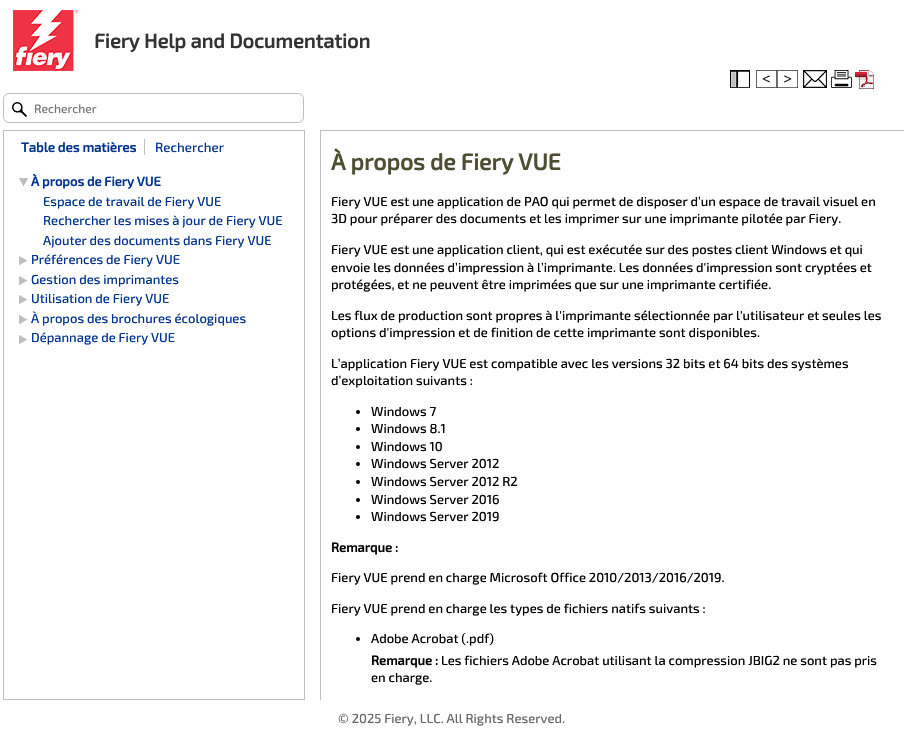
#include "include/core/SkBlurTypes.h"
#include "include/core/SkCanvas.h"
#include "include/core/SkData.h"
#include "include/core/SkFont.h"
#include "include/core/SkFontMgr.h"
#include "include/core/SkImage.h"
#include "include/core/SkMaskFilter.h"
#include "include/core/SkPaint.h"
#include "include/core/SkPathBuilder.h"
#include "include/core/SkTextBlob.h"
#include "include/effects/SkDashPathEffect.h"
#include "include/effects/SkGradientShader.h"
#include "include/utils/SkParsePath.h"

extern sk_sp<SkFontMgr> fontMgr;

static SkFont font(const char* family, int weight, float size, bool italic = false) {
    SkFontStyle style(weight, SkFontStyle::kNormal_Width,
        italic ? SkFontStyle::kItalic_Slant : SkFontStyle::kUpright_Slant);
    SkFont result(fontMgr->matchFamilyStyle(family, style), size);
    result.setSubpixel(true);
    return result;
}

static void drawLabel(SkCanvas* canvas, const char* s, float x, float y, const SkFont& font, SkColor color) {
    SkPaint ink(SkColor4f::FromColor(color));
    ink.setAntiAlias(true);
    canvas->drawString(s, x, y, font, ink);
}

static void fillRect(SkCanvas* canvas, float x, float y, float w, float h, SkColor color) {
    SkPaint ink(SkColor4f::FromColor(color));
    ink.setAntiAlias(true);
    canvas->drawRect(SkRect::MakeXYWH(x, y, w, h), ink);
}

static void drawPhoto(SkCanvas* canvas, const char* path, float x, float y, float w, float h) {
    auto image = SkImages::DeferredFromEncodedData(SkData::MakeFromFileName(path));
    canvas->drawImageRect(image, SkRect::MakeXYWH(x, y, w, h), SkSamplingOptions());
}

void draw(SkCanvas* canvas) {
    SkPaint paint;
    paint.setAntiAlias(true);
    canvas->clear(0xFFFFFFFF);
    drawPhoto(canvas, "assets/img1.png", 13, 10, 65, 61);
    SkFont font1 = font("Exo 2", 700, 20);
    drawLabel(canvas, "Fiery Help and Documentation", 94, 48, font1, 0xFF333333);
    drawPhoto(canvas, "assets/img2.png", 730, 70, 20, 18);
    drawPhoto(canvas, "assets/img3.png", 756, 70, 21, 18);
    drawPhoto(canvas, "assets/img4.png", 777, 70, 21, 18);
    drawPhoto(canvas, "assets/img5.png", 803, 70, 24, 18);
    drawPhoto(canvas, "assets/img6.png", 831, 70, 21, 18);
    drawPhoto(canvas, "assets/img7.png", 855, 70, 19, 19);
    paint.setStroke(true);
    paint.setStrokeWidth(1);
    paint.setColor(0xFFBFBFBF);
    canvas->drawRoundRect(SkRect::MakeXYWH(3.5f, 93.5f, 300, 29), 5.5f, 5.5f, paint);
    drawPhoto(canvas, "assets/img8.png", 12, 102, 15, 15);
    SkFont font2 = font("Exo 2", 500, 12);
    drawLabel(canvas, "Rechercher", 34, 113, font2, 0xFF757575);
    canvas->drawRect(SkRect::MakeXYWH(3.5f, 130.5f, 301, 569), paint);
    SkFont font3 = font("Exo 2", 700, 13.25f);
    drawLabel(canvas, "Table des matières", 21, 152, font3, 0xFF00338D);
    fillRect(canvas, 144, 139, 1, 16, 0xFFBFBFBF);
    SkFont font4 = font("Exo 2", 500, 13.25f);
    drawLabel(canvas, "Rechercher", 155, 152, font4, 0xFF00338D);
    drawPhoto(canvas, "assets/img9.png", 19, 178, 9, 8);
    SkFont font5 = font("Exo 2", 700, 13);
    drawLabel(canvas, "À propos de Fiery VUE", 31, 186, font5, 0xFF00338D);
    SkFont font6 = font("Exo 2", 500, 13);
    drawLabel(canvas, "Espace de travail de Fiery VUE", 43, 206, font6, 0xFF00338D);
    drawLabel(canvas, "Rechercher les mises à jour de Fiery VUE", 43, 225, font6, 0xFF00338D);
    drawLabel(canvas, "Ajouter des documents dans Fiery VUE", 43, 245, font6, 0xFF00338D);
    drawPhoto(canvas, "assets/img10.png", 19, 256, 8, 9);
    drawLabel(canvas, "Préférences de Fiery VUE", 31, 264, font6, 0xFF00338D);
    drawPhoto(canvas, "assets/img10.png", 19, 276, 8, 9);
    drawLabel(canvas, "Gestion des imprimantes", 31, 284, font6, 0xFF00338D);
    drawPhoto(canvas, "assets/img10.png", 19, 295, 8, 9);
    drawLabel(canvas, "Utilisation de Fiery VUE", 31, 303, font6, 0xFF00338D);
    drawPhoto(canvas, "assets/img10.png", 19, 315, 8, 9);
    drawLabel(canvas, "À propos des brochures écologiques", 31, 323, font6, 0xFF00338D);
    drawPhoto(canvas, "assets/img10.png", 19, 335, 8, 9);
    drawLabel(canvas, "Dépannage de Fiery VUE", 31, 342, font6, 0xFF00338D);
    fillRect(canvas, 320, 130, 584, 1, 0xFFBFBFBF);
    fillRect(canvas, 320, 130, 1, 570, 0xFFBFBFBF);
    SkFont font7 = font("Exo 2", 700, 23);
    drawLabel(canvas, "À propos de Fiery VUE", 331, 170, font7, 0xFF4D4F33);
    drawLabel(canvas, "Fiery VUE est une application de PAO qui permet de disposer d’un espace de travail visuel en", 331, 206, font6, 0xFF000000);
    drawLabel(canvas, "3D pour préparer des documents et les imprimer sur une imprimante pilotée par Fiery.", 331, 223, font6, 0xFF000000);
    drawLabel(canvas, "Fiery VUE est une application client, qui est exécutée sur des postes client Windows et qui", 331, 254, font6, 0xFF000000);
    drawLabel(canvas, "envoie les données d’impression à l’imprimante. Les données d'impression sont cryptées et", 331, 272, font6, 0xFF000000);
    drawLabel(canvas, "protégées, et ne peuvent être imprimées que sur une imprimante certifiée.", 331, 289, font6, 0xFF000000);
    drawLabel(canvas, "Les flux de production sont propres à l'imprimante sélectionnée par l'utilisateur et seules les", 331, 320, font6, 0xFF000000);
    drawLabel(canvas, "options d'impression et de finition de cette imprimante sont disponibles.", 331, 337, font6, 0xFF000000);
    drawLabel(canvas, "L’application Fiery VUE est compatible avec les versions 32 bits et 64 bits des systèmes", 331, 368, font6, 0xFF000000);
    drawLabel(canvas, "d’exploitation suivants :", 331, 385, font6, 0xFF000000);
    paint.setStroke(false);
    paint.setColor(0xFF000000);
    canvas->drawCircle(358, 412, 2, paint);
    drawLabel(canvas, "Windows 7", 371, 416, font6, 0xFF000000);
    canvas->drawCircle(358, 429, 2, paint);
    drawLabel(canvas, "Windows 8.1", 371, 433, font6, 0xFF000000);
    canvas->drawCircle(358, 447, 2, paint);
    drawLabel(canvas, "Windows 10", 371, 451, font6, 0xFF000000);
    canvas->drawCircle(358, 464, 2, paint);
    drawLabel(canvas, "Windows Server 2012", 371, 468, font6, 0xFF000000);
    canvas->drawCircle(358, 482, 2, paint);
    drawLabel(canvas, "Windows Server 2012 R2", 371, 486, font6, 0xFF000000);
    canvas->drawCircle(358, 500, 2, paint);
    drawLabel(canvas, "Windows Server 2016", 371, 504, font6, 0xFF000000);
    canvas->drawCircle(358, 517, 2, paint);
    drawLabel(canvas, "Windows Server 2019", 371, 521, font6, 0xFF000000);
    drawLabel(canvas, "Remarque :", 331, 552, font5, 0xFF000000);
    drawLabel(canvas, "Fiery VUE prend en charge Microsoft Office 2010/2013/2016/2019.", 331, 582, font6, 0xFF000000);
    drawLabel(canvas, "Fiery VUE prend en charge les types de fichiers natifs suivants :", 331, 613, font6, 0xFF000000);
    canvas->drawCircle(358, 639, 2, paint);
    drawLabel(canvas, "Adobe Acrobat (.pdf)", 371, 643, font6, 0xFF000000);
    drawLabel(canvas, "Remarque :", 371, 665, font5, 0xFF000000);
    drawLabel(canvas, "Les fichiers Adobe Acrobat utilisant la compression JBIG2 ne sont pas pris", 441, 665, font6, 0xFF000000);
    drawLabel(canvas, "en charge.", 371, 682, font6, 0xFF000000);
    drawLabel(canvas, "© 2025 Fiery, LLC. All Rights Reserved.", 338, 723, font6, 0xFF666666);
}
